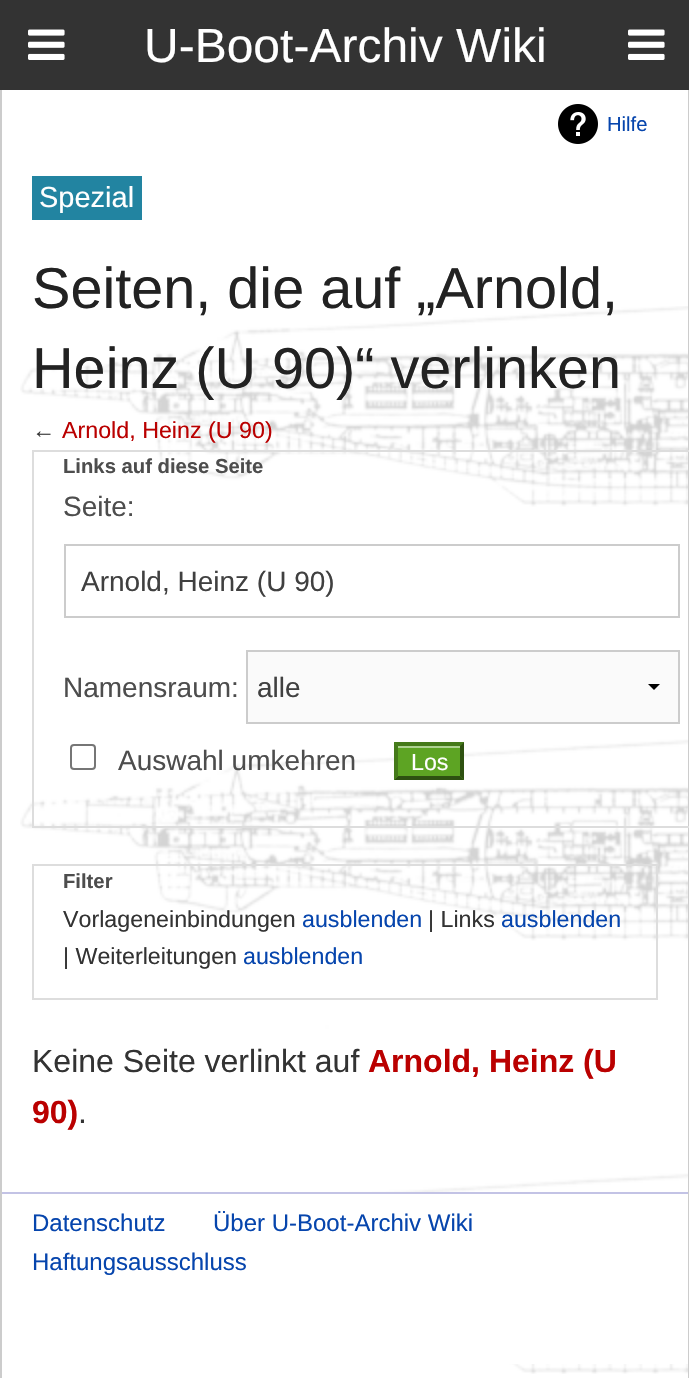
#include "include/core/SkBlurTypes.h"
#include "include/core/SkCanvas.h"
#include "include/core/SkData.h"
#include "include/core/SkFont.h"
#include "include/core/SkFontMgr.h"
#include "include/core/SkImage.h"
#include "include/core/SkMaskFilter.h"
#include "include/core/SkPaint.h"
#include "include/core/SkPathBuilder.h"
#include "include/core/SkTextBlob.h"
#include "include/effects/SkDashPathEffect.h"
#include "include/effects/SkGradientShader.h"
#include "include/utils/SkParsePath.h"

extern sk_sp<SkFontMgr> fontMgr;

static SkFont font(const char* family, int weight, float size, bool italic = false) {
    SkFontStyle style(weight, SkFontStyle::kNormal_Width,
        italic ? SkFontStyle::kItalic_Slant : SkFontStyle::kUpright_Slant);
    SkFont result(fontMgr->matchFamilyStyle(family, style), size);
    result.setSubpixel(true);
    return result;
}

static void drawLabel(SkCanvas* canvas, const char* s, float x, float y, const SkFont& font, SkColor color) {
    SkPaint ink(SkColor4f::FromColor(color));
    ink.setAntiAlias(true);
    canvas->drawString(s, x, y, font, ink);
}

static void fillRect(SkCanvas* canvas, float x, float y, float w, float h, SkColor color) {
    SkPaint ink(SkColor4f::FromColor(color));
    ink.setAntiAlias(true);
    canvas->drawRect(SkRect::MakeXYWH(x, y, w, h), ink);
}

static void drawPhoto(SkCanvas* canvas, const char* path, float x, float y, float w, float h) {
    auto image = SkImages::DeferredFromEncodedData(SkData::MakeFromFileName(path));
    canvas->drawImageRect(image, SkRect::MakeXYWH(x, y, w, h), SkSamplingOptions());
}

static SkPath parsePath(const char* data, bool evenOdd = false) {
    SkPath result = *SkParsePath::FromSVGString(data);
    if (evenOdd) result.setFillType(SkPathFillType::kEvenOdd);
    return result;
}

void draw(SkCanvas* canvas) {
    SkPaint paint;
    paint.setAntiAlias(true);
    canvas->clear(0xFF333333);
    drawPhoto(canvas, "assets/img1.png", 28, 29, 37, 31);
    SkFont font1 = font("Liberation Sans", 400, 48);
    drawLabel(canvas, "U-Boot-Archiv Wiki", 144, 62, font1, 0xFFFFFFFF);
    drawPhoto(canvas, "assets/img1.png", 628, 29, 37, 31);
    fillRect(canvas, 2, 90, 686, 1288, 0xFFFFFFFF);
    drawPhoto(canvas, "assets/img2.png", 20, 306, 668, 1068);
    fillRect(canvas, 688, 90, 1, 1288, 0xFFCCCCCC);
    fillRect(canvas, 0, 90, 2, 1288, 0xFFCCCCCC);
    drawPhoto(canvas, "assets/img3.png", 558, 104, 40, 40);
    SkFont font2 = font("Liberation Sans", 400, 20.25f);
    drawLabel(canvas, "Hilfe", 607, 131, font2, 0xFF0645AD);
    fillRect(canvas, 32, 176, 110, 44, 0xFF2284A1);
    SkFont font3 = font("Liberation Sans", 400, 29);
    drawLabel(canvas, "Spezial", 39, 207, font3, 0xFFFFFFFF);
    SkFont font4 = font("Liberation Sans", 400, 57.6f);
    drawLabel(canvas, "Seiten, die auf „Arnold,", 32, 308, font4, 0xFF222222);
    drawLabel(canvas, "Heinz (U 90)“ verlinken", 32, 388, font4, 0xFF222222);
    SkFont font5 = font("Liberation Sans", 400, 23.25f);
    drawLabel(canvas, "←", 32, 438, font5, 0xFF333333);
    drawLabel(canvas, "Arnold, Heinz (U 90)", 62, 438, font5, 0xFFBA0000);
    paint.setStroke(true);
    paint.setStrokeWidth(2);
    paint.setColor(0xFFDDDDDD);
    canvas->drawRect(SkRect::MakeXYWH(33, 451, 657, 376), paint);
    SkFont font6 = font("Liberation Sans", 700, 20.25f);
    drawLabel(canvas, "Links auf diese Seite", 63, 473, font6, 0xFF4D4D4D);
    SkFont font7 = font("Liberation Sans", 400, 28);
    drawLabel(canvas, "Seite:", 63, 516, font7, 0xFF4D4D4D);
    paint.setColor(0xFFCCCCCC);
    canvas->drawRect(SkRect::MakeXYWH(65, 545, 614, 72), paint);
    drawLabel(canvas, "Arnold, Heinz (U 90)", 81, 591, font7, 0xFF404040);
    drawLabel(canvas, "Namensraum:", 63, 697, font7, 0xFF4D4D4D);
    fillRect(canvas, 248, 652, 430, 70, 0xFFFAFAFA);
    paint.setStroke(false);
    paint.setColor(0xFF000000);
    canvas->drawPath(parsePath("M660 684L654 690L648 684Z"), paint);
    paint.setStroke(true);
    paint.setColor(0xFFCCCCCC);
    canvas->drawRect(SkRect::MakeXYWH(247, 651, 432, 72), paint);
    drawLabel(canvas, "alle", 257, 697, font7, 0xFF404040);
    paint.setColor(0xFF767676);
    canvas->drawRoundRect(SkRect::MakeXYWH(71, 745, 24, 24), 3, 3, paint);
    drawLabel(canvas, "Auswahl umkehren", 118, 770, font7, 0xFF4D4D4D);
    fillRect(canvas, 394, 742, 70, 38, 0xFF5DA423);
    fillRect(canvas, 398, 746, 62, 2, 0xFFAED291);
    paint.setStroke(false);
    paint.setColor(0xFF457A1A);
    canvas->drawPath(parsePath("M394 742H464L460 746H398Z"), paint);
    paint.setColor(0xFF2E5111);
    canvas->drawPath(parsePath("M464 742V780L460 776V746Z"), paint);
    canvas->drawPath(parsePath("M464 780H394L398 776H460Z"), paint);
    paint.setColor(0xFF457A1A);
    canvas->drawPath(parsePath("M394 780V742L398 746V776Z"), paint);
    drawLabel(canvas, "Los", 411, 770, font5, 0xFFFFFFFF);
    paint.setStroke(true);
    paint.setColor(0xFFDDDDDD);
    canvas->drawRect(SkRect::MakeXYWH(33, 865, 624, 134), paint);
    drawLabel(canvas, "Filter", 63, 888, font6, 0xFF4D4D4D);
    drawLabel(canvas, "Vorlageneinbindungen", 63, 927, font5, 0xFF333333);
    drawLabel(canvas, "ausblenden", 302, 927, font5, 0xFF0645AD);
    drawLabel(canvas, "| Links", 428, 927, font5, 0xFF333333);
    drawLabel(canvas, "ausblenden", 501, 927, font5, 0xFF0645AD);
    drawLabel(canvas, "| Weiterleitungen", 63, 964, font5, 0xFF333333);
    drawLabel(canvas, "ausblenden", 243, 964, font5, 0xFF0645AD);
    SkFont font8 = font("Liberation Sans", 400, 32);
    drawLabel(canvas, "Keine Seite verlinkt auf", 32, 1072, font8, 0xFF333333);
    SkFont font9 = font("Liberation Sans", 700, 32);
    drawLabel(canvas, "Arnold, Heinz (U", 368, 1072, font9, 0xFFBA0000);
    drawLabel(canvas, "90)", 32, 1123, font9, 0xFFBA0000);
    drawLabel(canvas, ".", 78, 1123, font8, 0xFF333333);
    fillRect(canvas, 20, 1194, 668, 170, 0xFFFFFFFF);
    fillRect(canvas, 2, 1192, 686, 2, 0xFFC3C3E5);
    SkFont font10 = font("Liberation Sans", 400, 24);
    drawLabel(canvas, "Datenschutz", 32, 1231, font10, 0xFF0645AD);
    drawLabel(canvas, "Über U-Boot-Archiv Wiki", 213, 1231, font10, 0xFF0645AD);
    drawLabel(canvas, "Haftungsausschluss", 32, 1270, font10, 0xFF0645AD);
}
